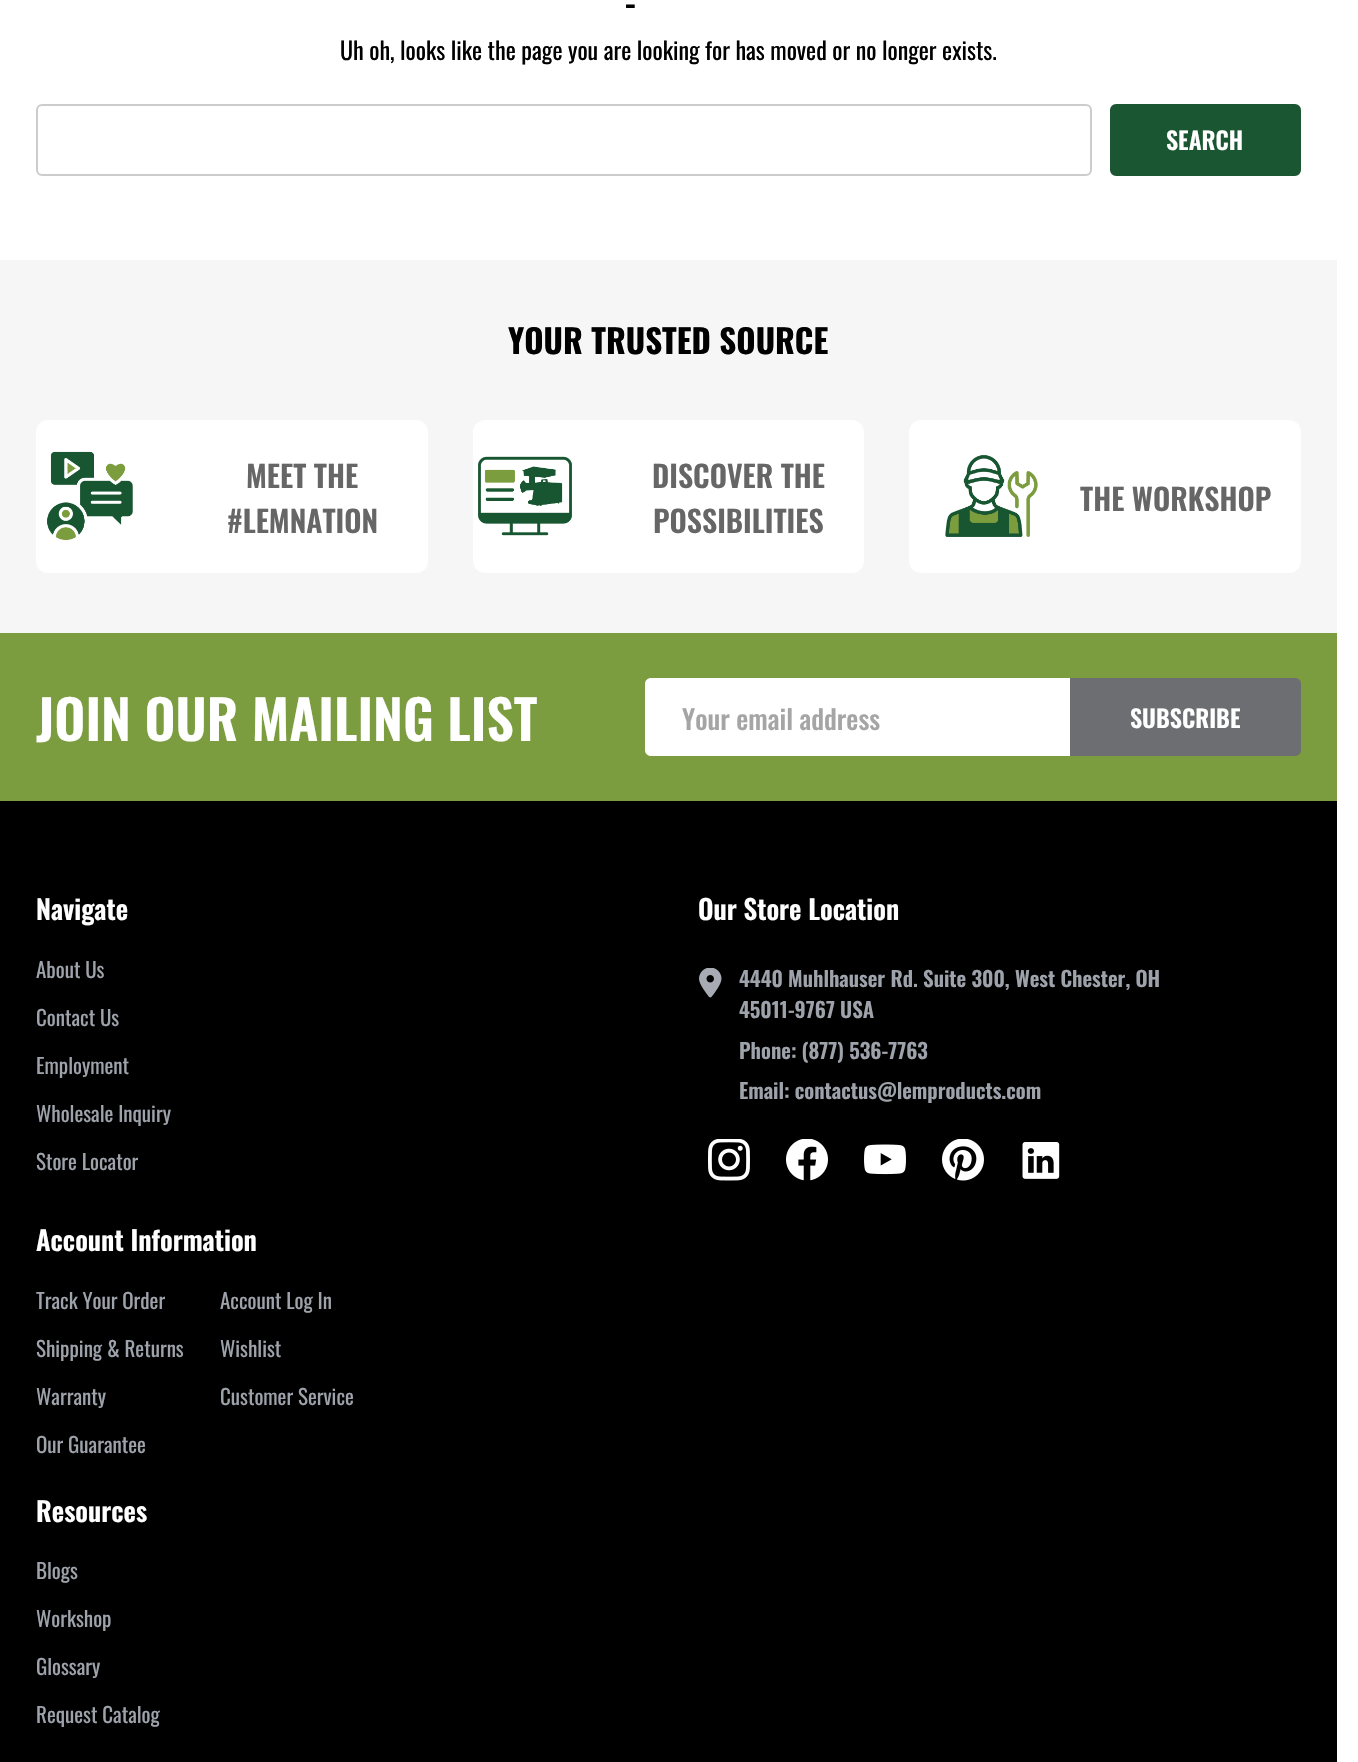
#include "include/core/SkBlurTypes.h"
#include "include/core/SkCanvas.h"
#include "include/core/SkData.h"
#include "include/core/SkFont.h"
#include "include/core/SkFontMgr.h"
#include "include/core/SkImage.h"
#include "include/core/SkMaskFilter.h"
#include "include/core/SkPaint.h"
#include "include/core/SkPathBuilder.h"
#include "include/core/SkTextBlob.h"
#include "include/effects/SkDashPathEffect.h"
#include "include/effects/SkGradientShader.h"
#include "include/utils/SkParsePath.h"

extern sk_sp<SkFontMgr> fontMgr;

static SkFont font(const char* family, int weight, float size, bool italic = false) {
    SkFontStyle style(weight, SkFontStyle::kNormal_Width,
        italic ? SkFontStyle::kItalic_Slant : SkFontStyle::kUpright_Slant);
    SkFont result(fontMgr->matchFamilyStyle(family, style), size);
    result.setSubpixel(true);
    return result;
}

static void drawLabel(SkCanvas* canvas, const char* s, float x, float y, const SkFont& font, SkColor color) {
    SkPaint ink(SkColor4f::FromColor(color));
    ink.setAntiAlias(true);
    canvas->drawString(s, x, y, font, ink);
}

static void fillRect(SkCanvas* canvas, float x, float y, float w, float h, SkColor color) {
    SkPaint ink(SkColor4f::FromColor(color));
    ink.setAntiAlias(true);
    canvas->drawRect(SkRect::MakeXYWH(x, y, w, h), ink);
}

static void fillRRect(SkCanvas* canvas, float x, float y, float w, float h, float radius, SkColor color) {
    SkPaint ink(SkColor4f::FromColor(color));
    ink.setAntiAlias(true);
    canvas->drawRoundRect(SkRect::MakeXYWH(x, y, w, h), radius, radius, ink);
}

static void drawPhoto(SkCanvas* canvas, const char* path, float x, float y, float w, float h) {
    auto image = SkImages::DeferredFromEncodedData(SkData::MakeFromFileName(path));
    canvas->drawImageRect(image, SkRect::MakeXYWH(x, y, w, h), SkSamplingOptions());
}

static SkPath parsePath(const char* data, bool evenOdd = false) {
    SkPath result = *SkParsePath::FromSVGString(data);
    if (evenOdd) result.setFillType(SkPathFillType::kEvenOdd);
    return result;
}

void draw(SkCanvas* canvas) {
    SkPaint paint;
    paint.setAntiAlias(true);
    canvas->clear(0xFFFFFFFF);
    SkFont font1 = font("Oswald", 700, 33);
    drawLabel(canvas, "-", 625, 16, font1, 0xFF000000);
    SkFont font2 = font("Oswald", 400, 24);
    drawLabel(canvas, "Uh oh, looks like the page you are looking for has moved or no longer exists.", 340, 60, font2, 0xFF000000);
    paint.setStroke(true);
    paint.setStrokeWidth(2);
    paint.setColor(0xFFCCCCCC);
    canvas->drawRoundRect(SkRect::MakeXYWH(37, 105, 1054, 70), 5, 5, paint);
    paint.setStroke(false);
    paint.setColor(0xFF1A5632);
    canvas->drawRoundRect(SkRect::MakeXYWH(1111.5f, 105.5f, 188, 69), 4.5f, 4.5f, paint);
    paint.setStroke(true);
    paint.setStrokeWidth(3);
    canvas->drawRoundRect(SkRect::MakeXYWH(1111.5f, 105.5f, 188, 69), 4.5f, 4.5f, paint);
    SkFont font3 = font("Oswald", 600, 24);
    drawLabel(canvas, "SEARCH", 1166, 150, font3, 0xFFFFFFFF);
    fillRect(canvas, 0, 801, 1337, 961, 0xFF000000);
    fillRect(canvas, 0, 260, 1337, 373, 0xFFF6F6F6);
    drawLabel(canvas, "YOUR TRUSTED SOURCE", 508, 354, font1, 0xFF000000);
    fillRRect(canvas, 36, 420, 392, 153, 12, 0xFFFFFFFF);
    drawPhoto(canvas, "assets/img1.png", 47, 451, 86, 90);
    SkFont font4 = font("Oswald", 600, 30);
    drawLabel(canvas, "MEET THE", 246, 488, font4, 0xFF666666);
    drawLabel(canvas, "#LEMNATION", 227, 533, font4, 0xFF666666);
    fillRRect(canvas, 473, 420, 391, 153, 12, 0xFFFFFFFF);
    drawPhoto(canvas, "assets/img2.png", 478, 456, 94, 80);
    drawLabel(canvas, "DISCOVER THE", 652, 488, font4, 0xFF666666);
    drawLabel(canvas, "POSSIBILITIES", 653, 533, font4, 0xFF666666);
    fillRRect(canvas, 909, 420, 392, 153, 12, 0xFFFFFFFF);
    drawPhoto(canvas, "assets/img3.png", 945, 455, 93, 82);
    drawLabel(canvas, "THE WORKSHOP", 1080, 511, font4, 0xFF666666);
    fillRect(canvas, 0, 633, 1337, 168, 0xFF7B9C3F);
    SkFont font5 = font("Oswald", 600, 54);
    drawLabel(canvas, "JOIN OUR MAILING LIST", 36, 741, font5, 0xFFFFFFFF);
    paint.setStroke(false);
    paint.setColor(0xFFFFFFFF);
    canvas->drawPath(parsePath("M651 678H1070V756H651C647.5 756 645 753.5 645 750V684C645 680.5 647.5 678 651 678Z"), paint);
    SkFont font6 = font("Oswald", 500, 27);
    drawLabel(canvas, "Your email address", 682, 730, font6, 0xFFA5A5A5);
    paint.setColor(0xFF6D6E71);
    canvas->drawPath(parsePath("M1070 678H1295C1298.5 678 1301 680.5 1301 684V750C1301 753.5 1298.5 756 1295 756H1070Z"), paint);
    drawLabel(canvas, "SUBSCRIBE", 1130, 728, font3, 0xFFFFFFFF);
    SkFont font7 = font("Oswald", 600, 27);
    drawLabel(canvas, "Navigate", 36, 920, font7, 0xFFFFFFFF);
    SkFont font8 = font("Oswald", 400, 21);
    drawLabel(canvas, "About Us", 36, 978, font8, 0xFF9DA2AB);
    drawLabel(canvas, "Contact Us", 36, 1026, font8, 0xFF9DA2AB);
    drawLabel(canvas, "Employment", 36, 1074, font8, 0xFF9DA2AB);
    drawLabel(canvas, "Wholesale Inquiry", 36, 1122, font8, 0xFF9DA2AB);
    drawLabel(canvas, "Store Locator", 36, 1170, font8, 0xFF9DA2AB);
    drawLabel(canvas, "Account Information", 36, 1251, font7, 0xFFFFFFFF);
    drawLabel(canvas, "Track Your Order", 36, 1309, font8, 0xFF9DA2AB);
    drawLabel(canvas, "Account Log In", 220, 1309, font8, 0xFF9DA2AB);
    drawLabel(canvas, "Shipping & Returns", 36, 1357, font8, 0xFF9DA2AB);
    drawLabel(canvas, "Wishlist", 220, 1357, font8, 0xFF9DA2AB);
    drawLabel(canvas, "Warranty", 36, 1405, font8, 0xFF9DA2AB);
    drawLabel(canvas, "Customer Service", 220, 1405, font8, 0xFF9DA2AB);
    drawLabel(canvas, "Our Guarantee", 36, 1453, font8, 0xFF9DA2AB);
    drawLabel(canvas, "Resources", 36, 1522, font7, 0xFFFFFFFF);
    drawLabel(canvas, "Blogs", 36, 1579, font8, 0xFF9DA2AB);
    drawLabel(canvas, "Workshop", 36, 1627, font8, 0xFF9DA2AB);
    drawLabel(canvas, "Glossary", 36, 1675, font8, 0xFF9DA2AB);
    drawLabel(canvas, "Request Catalog", 36, 1723, font8, 0xFF9DA2AB);
    drawLabel(canvas, "Our Store Location", 698, 920, font7, 0xFFFFFFFF);
    drawPhoto(canvas, "assets/img4.png", 699, 968, 23, 30);
    SkFont font9 = font("Oswald", 600, 21);
    drawLabel(canvas, "4440 Muhlhauser Rd. Suite 300, West Chester, OH", 739, 987, font9, 0xFF9DA2AB);
    drawLabel(canvas, "45011-9767 USA", 739, 1018, font9, 0xFF9DA2AB);
    drawLabel(canvas, "Phone: (877) 536-7763", 739, 1059, font9, 0xFF9DA2AB);
    drawLabel(canvas, "Email: contactus@lemproducts.com", 739, 1099, font9, 0xFF9DA2AB);
    drawPhoto(canvas, "assets/img5.png", 708, 1139, 42, 42);
    drawPhoto(canvas, "assets/img6.png", 786, 1139, 42, 42);
    drawPhoto(canvas, "assets/img7.png", 864, 1144, 42, 31);
    drawPhoto(canvas, "assets/img8.png", 942, 1139, 42, 42);
    drawPhoto(canvas, "assets/img9.png", 1022, 1142, 38, 37);
}
